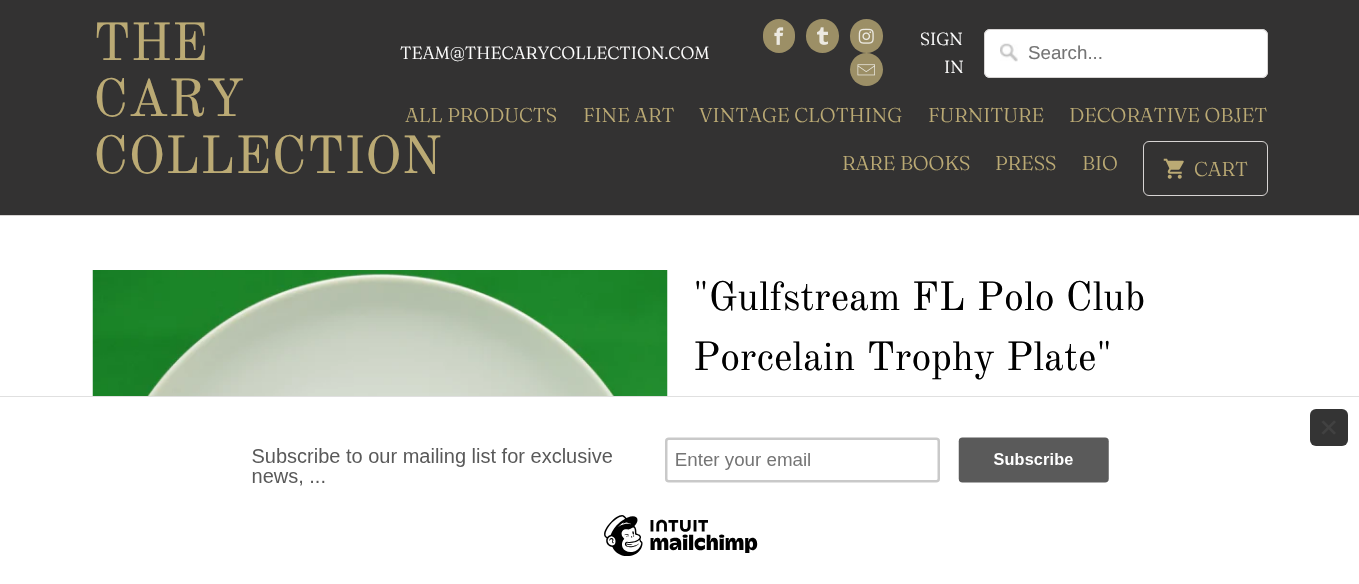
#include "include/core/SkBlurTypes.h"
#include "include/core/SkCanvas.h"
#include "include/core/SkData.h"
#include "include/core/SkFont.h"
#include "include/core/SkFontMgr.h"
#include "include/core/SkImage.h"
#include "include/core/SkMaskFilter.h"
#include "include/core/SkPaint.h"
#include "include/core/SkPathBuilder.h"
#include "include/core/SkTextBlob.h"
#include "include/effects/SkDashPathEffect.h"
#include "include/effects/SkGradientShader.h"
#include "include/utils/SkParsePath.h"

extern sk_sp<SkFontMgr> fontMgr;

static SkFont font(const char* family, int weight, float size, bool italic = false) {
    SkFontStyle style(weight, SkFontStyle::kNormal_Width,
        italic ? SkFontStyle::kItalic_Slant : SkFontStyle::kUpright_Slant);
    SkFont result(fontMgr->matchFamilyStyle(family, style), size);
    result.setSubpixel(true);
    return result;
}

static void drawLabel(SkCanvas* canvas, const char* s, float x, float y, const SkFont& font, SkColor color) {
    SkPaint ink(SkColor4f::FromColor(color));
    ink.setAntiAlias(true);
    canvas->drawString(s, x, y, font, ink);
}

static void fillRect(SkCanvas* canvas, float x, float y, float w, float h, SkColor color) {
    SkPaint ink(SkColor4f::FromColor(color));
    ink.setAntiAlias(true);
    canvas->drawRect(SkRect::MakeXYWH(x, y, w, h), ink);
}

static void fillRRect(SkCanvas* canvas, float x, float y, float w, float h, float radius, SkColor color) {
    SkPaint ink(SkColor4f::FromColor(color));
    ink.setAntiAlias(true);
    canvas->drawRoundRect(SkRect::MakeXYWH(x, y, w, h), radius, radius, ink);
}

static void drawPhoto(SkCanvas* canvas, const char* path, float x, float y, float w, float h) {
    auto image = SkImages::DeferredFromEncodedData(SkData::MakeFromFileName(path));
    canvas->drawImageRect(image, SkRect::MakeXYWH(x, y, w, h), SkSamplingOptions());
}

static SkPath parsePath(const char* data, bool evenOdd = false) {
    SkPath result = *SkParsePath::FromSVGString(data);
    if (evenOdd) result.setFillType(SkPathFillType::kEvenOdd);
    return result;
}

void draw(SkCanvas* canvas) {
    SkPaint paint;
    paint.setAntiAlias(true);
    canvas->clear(0xFFFFFFFF);
    fillRect(canvas, 0, 0, 1359, 215, 0xFF333232);
    fillRect(canvas, 0, 215, 1359, 1, 0xFFD7D4D3);
    SkFont font1 = font("Old Standard TT", 400, 52.5f);
    drawLabel(canvas, "THE", 93, 60, font1, 0xFFBBAA74);
    drawLabel(canvas, "CARY", 93, 116, font1, 0xFFBBAA74);
    drawLabel(canvas, "COLLECTION", 93, 173, font1, 0xFFBBAA74);
    SkFont font2 = font("Fraunces", 300, 17.5f);
    drawLabel(canvas, "TEAM@THECARYCOLLECTION.COM", 400, 59, font2, 0xFFFFFFFF);
    fillRRect(canvas, 763, 19, 32, 34, 16, 0xFF9C8F66);
    drawPhoto(canvas, "assets/img1.png", 774, 27, 10, 18);
    fillRRect(canvas, 806, 19, 33, 34, 16.5f, 0xFF9C8F66);
    drawPhoto(canvas, "assets/img2.png", 817, 27, 11, 18);
    fillRRect(canvas, 850, 19, 33, 34, 16.5f, 0xFF9C8F66);
    drawPhoto(canvas, "assets/img3.png", 858, 28, 16, 16);
    paint.setColor(0xFF9C8F66);
    canvas->drawCircle(866.5f, 69.5f, 16.5f, paint);
    drawPhoto(canvas, "assets/img4.png", 857, 64, 18, 12);
    drawLabel(canvas, "SIGN", 920, 45, font2, 0xFFFFFFFF);
    drawLabel(canvas, "IN", 944, 73, font2, 0xFFFFFFFF);
    fillRRect(canvas, 984, 29, 284, 49, 6, 0xFFFFFFFF);
    drawPhoto(canvas, "assets/img5.png", 1000, 43, 18, 19);
    paint.setStroke(true);
    paint.setStrokeWidth(1);
    paint.setColor(0xFFD7D4D3);
    canvas->drawRoundRect(SkRect::MakeXYWH(984.5f, 29.5f, 283, 48), 5.5f, 5.5f, paint);
    SkFont font3 = font("Liberation Sans", 400, 18.75f);
    drawLabel(canvas, "Search...", 1028, 59, font3, 0xFF757575);
    SkFont font4 = font("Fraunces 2", 300, 20);
    drawLabel(canvas, "ALL PRODUCTS", 405, 122, font4, 0xFFBBAA74);
    drawLabel(canvas, "FINE ART", 583, 122, font4, 0xFFBBAA74);
    drawLabel(canvas, "VINTAGE CLOTHING", 699, 122, font4, 0xFFBBAA74);
    drawLabel(canvas, "FURNITURE", 928, 122, font4, 0xFFBBAA74);
    drawLabel(canvas, "DECORATIVE OBJET", 1069, 122, font4, 0xFFBBAA74);
    drawLabel(canvas, "RARE BOOKS", 842, 170, font4, 0xFFBBAA74);
    drawLabel(canvas, "PRESS", 995, 170, font4, 0xFFBBAA74);
    drawLabel(canvas, "BIO", 1082, 170, font4, 0xFFBBAA74);
    canvas->drawRoundRect(SkRect::MakeXYWH(1143.5f, 141.5f, 124, 54), 5.5f, 5.5f, paint);
    drawPhoto(canvas, "assets/img6.png", 1163, 158, 21, 21);
    drawLabel(canvas, "CART", 1194, 176, font4, 0xFFBBAA74);
    drawPhoto(canvas, "assets/img7.png", 92, 270, 576, 126);
    SkFont font5 = font("Old Standard TT", 400, 40);
    drawLabel(canvas, "\"Gulfstream FL Polo Club", 693, 310, font5, 0xFF000000);
    drawLabel(canvas, "Porcelain Trophy Plate\"", 693, 370, font5, 0xFF000000);
    fillRect(canvas, 0, 396, 1359, 1, 0xFFE0E0E0);
    drawPhoto(canvas, "assets/img8.png", 252, 437, 857, 119);
    fillRRect(canvas, 1310, 409, 38, 37, 6, 0xFF343434);
    paint.setStroke(false);
    paint.setColor(0xFF414141);
    canvas->drawPath(parsePath("M1334 420.5L1336 422L1323.5 434.5L1321.5 433Z"), paint);
    canvas->drawPath(parsePath("M1321.5 422L1323.5 420.5L1336 433L1334 434.5Z"), paint);
}
